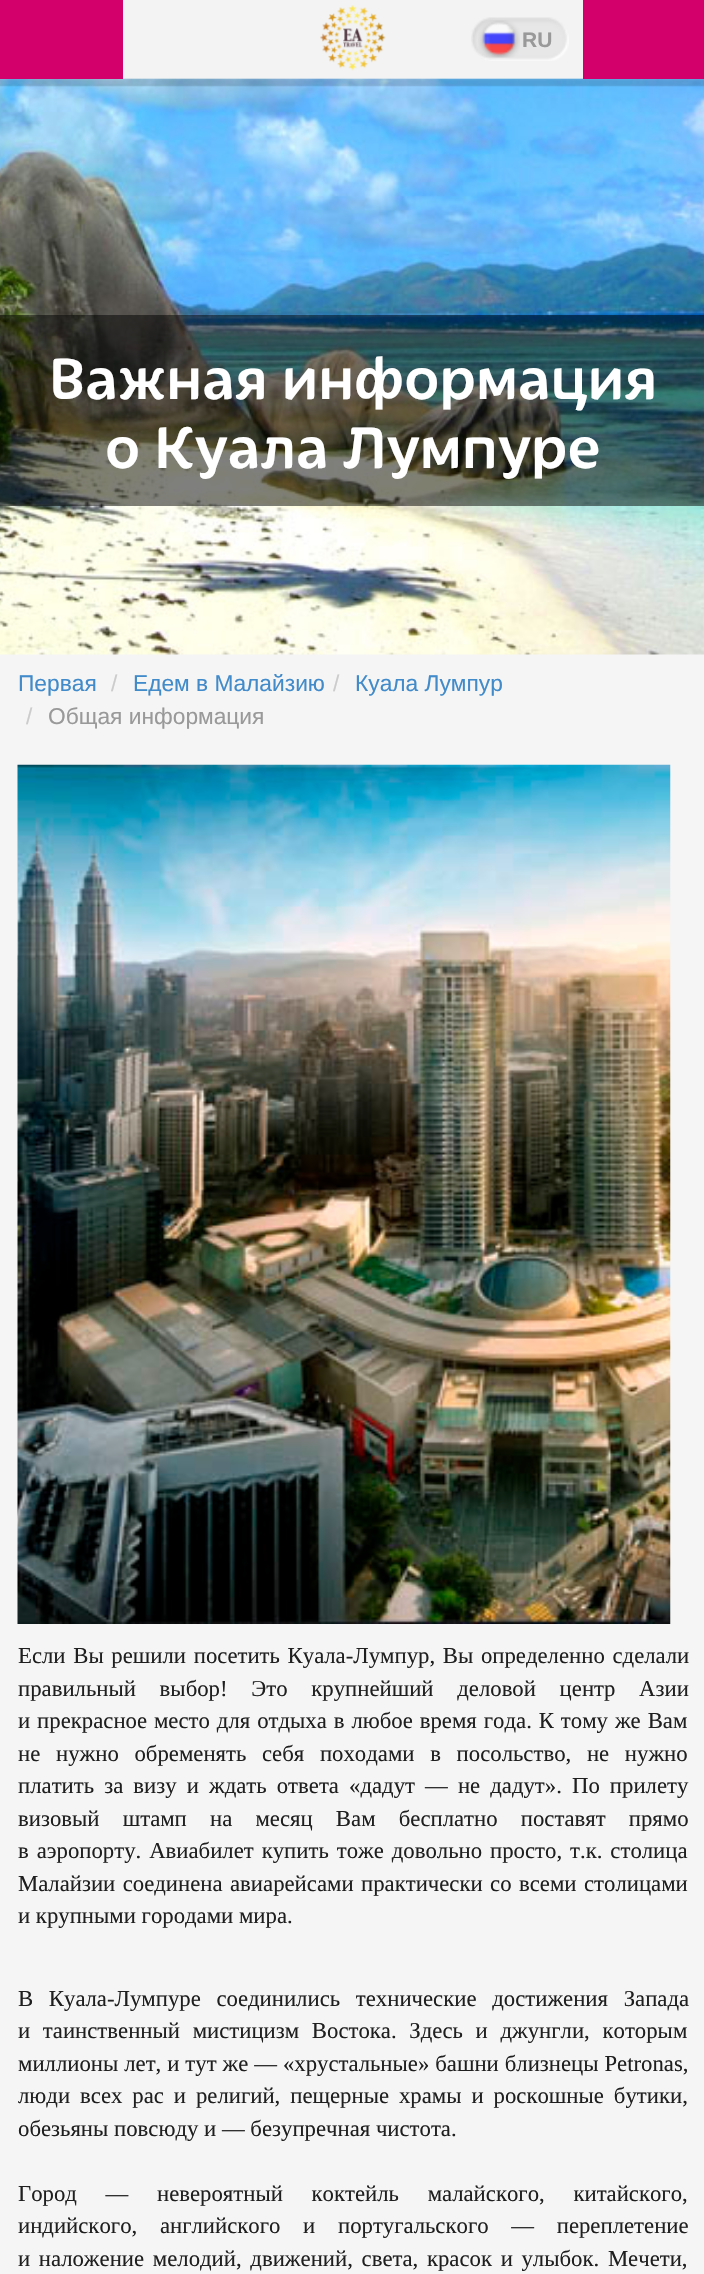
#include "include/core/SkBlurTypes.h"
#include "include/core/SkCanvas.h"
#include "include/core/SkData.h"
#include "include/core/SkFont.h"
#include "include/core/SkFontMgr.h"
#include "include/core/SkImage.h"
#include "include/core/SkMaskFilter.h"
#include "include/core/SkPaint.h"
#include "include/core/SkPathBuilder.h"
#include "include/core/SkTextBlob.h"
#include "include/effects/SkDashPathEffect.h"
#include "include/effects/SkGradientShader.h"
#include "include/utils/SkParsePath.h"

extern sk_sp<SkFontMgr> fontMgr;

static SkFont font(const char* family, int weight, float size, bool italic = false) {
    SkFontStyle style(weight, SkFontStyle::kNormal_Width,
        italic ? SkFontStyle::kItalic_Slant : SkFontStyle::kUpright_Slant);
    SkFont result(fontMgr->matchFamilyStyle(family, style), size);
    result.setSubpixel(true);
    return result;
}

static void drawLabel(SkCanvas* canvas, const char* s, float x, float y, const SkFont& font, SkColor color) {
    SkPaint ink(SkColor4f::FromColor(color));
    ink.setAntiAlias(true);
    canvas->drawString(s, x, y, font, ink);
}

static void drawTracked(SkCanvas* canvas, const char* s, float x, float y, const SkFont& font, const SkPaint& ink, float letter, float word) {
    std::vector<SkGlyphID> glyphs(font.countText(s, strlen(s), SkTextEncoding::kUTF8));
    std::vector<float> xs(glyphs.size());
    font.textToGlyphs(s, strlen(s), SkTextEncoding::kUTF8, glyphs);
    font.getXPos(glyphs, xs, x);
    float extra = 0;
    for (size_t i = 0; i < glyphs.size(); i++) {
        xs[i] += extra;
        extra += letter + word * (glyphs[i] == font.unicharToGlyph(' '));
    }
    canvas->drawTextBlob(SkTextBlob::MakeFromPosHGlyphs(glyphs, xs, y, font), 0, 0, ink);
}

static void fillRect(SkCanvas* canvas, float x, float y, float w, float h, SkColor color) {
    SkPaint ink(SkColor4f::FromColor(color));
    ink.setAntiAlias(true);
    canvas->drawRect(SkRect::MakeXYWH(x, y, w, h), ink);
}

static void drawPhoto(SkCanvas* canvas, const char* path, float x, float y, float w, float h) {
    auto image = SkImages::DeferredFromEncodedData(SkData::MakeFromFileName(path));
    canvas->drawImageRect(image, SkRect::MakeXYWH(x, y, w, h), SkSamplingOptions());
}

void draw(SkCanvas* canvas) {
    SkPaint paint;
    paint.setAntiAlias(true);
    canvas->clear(0xFFF5F5F5);
    drawPhoto(canvas, "assets/img5.png", 0, 78, 704, 577);
    drawPhoto(canvas, "assets/img1.png", 0, 0, 704, 87);
    fillRect(canvas, 0, 0, 123, 79, 0xFFD3006C);
    drawPhoto(canvas, "assets/img2.png", 320, 5, 66, 66);
    drawPhoto(canvas, "assets/img3.png", 471, 17, 98, 44);
    drawPhoto(canvas, "assets/img4.png", 478, 20, 42, 38);
    SkFont font1 = font("Liberation Sans", 700, 21);
    drawLabel(canvas, "RU", 522, 47, font1, 0xFF999999);
    fillRect(canvas, 583, 0, 121, 79, 0xFFD3006C);
    fillRect(canvas, 0, 315, 704, 191, 0x80000000);
    SkFont font2 = font("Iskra", 500, 63);
    drawLabel(canvas, "Важная информация", 49, 399, font2, 0xFFFFFFFF);
    drawLabel(canvas, "о Куала Лумпуре", 105, 468, font2, 0xFFFFFFFF);
    SkFont font3 = font("Liberation Sans", 400, 22.75f);
    drawLabel(canvas, "Первая", 18, 691, font3, 0xFF428BCA);
    drawLabel(canvas, "/", 111, 691, font3, 0xFFCCCCCC);
    drawLabel(canvas, "Едем в Малайзию", 133, 691, font3, 0xFF428BCA);
    drawLabel(canvas, "/", 333, 691, font3, 0xFFCCCCCC);
    drawLabel(canvas, "Куала Лумпур", 355, 691, font3, 0xFF428BCA);
    drawLabel(canvas, "/", 26, 724, font3, 0xFFCCCCCC);
    drawLabel(canvas, "Общая информация", 48, 724, font3, 0xFF999999);
    drawPhoto(canvas, "assets/img6.png", 17, 764, 654, 860);
    SkFont font4 = font("Liberation Serif", 400, 22.75f);
    paint.setColor(0xFF1F1F1F);
    drawTracked(canvas, "Если Вы решили посетить Куала-Лумпур, Вы определенно сделали", 18, 1663, font4, paint, 0, 2);
    drawTracked(canvas, "правильный выбор! Это крупнейший деловой центр Азии", 18, 1696, font4, paint, 0, 18);
    drawTracked(canvas, "и прекрасное место для отдыха в любое время года. К тому же Вам", 18, 1728, font4, paint, 0, 1.25f);
    drawTracked(canvas, "не нужно обременять себя походами в посольство, не нужно", 18, 1761, font4, paint, 0, 10);
    drawTracked(canvas, "платить за визу и ждать ответа «дадут — не дадут». По прилету", 18, 1793, font4, paint, 0, 4.4f);
    drawTracked(canvas, "визовый штамп на месяц Вам бесплатно поставят прямо", 18, 1826, font4, paint, 0, 17.5f);
    drawTracked(canvas, "в аэропорту. Авиабилет купить тоже довольно просто, т.к. столица", 18, 1858, font4, paint, 0, 2.25f);
    drawTracked(canvas, "Малайзии соединена авиарейсами практически со всеми столицами", 18, 1891, font4, paint, 0, 1.75f);
    drawLabel(canvas, "и крупными городами мира.", 18, 1923, font4, 0xFF1F1F1F);
    drawTracked(canvas, "В Куала-Лумпуре соединились технические достижения Запада", 18, 2006, font4, paint, 0, 10);
    drawTracked(canvas, "и таинственный мистицизм Востока. Здесь и джунгли, которым", 18, 2038, font4, paint, 0, 7);
    drawTracked(canvas, "миллионы лет, и тут же — «хрустальные» башни близнецы Petronas,", 18, 2071, font4, paint, 0, 0.25f);
    drawTracked(canvas, "люди всех рас и религий, пещерные храмы и роскошные бутики,", 18, 2103, font4, paint, 0, 4.25f);
    drawLabel(canvas, "обезьяны повсюду и — безупречная чистота.", 18, 2136, font4, 0xFF1F1F1F);
    drawTracked(canvas, "Город — невероятный коктейль малайского, китайского,", 18, 2201, font4, paint, 0, 23);
    drawTracked(canvas, "индийского, английского и португальского — переплетение", 18, 2233, font4, paint, 0, 17);
    drawTracked(canvas, "и наложение мелодий, движений, света, красок и улыбок. Мечети,", 18, 2266, font4, paint, 0, 3);
}
